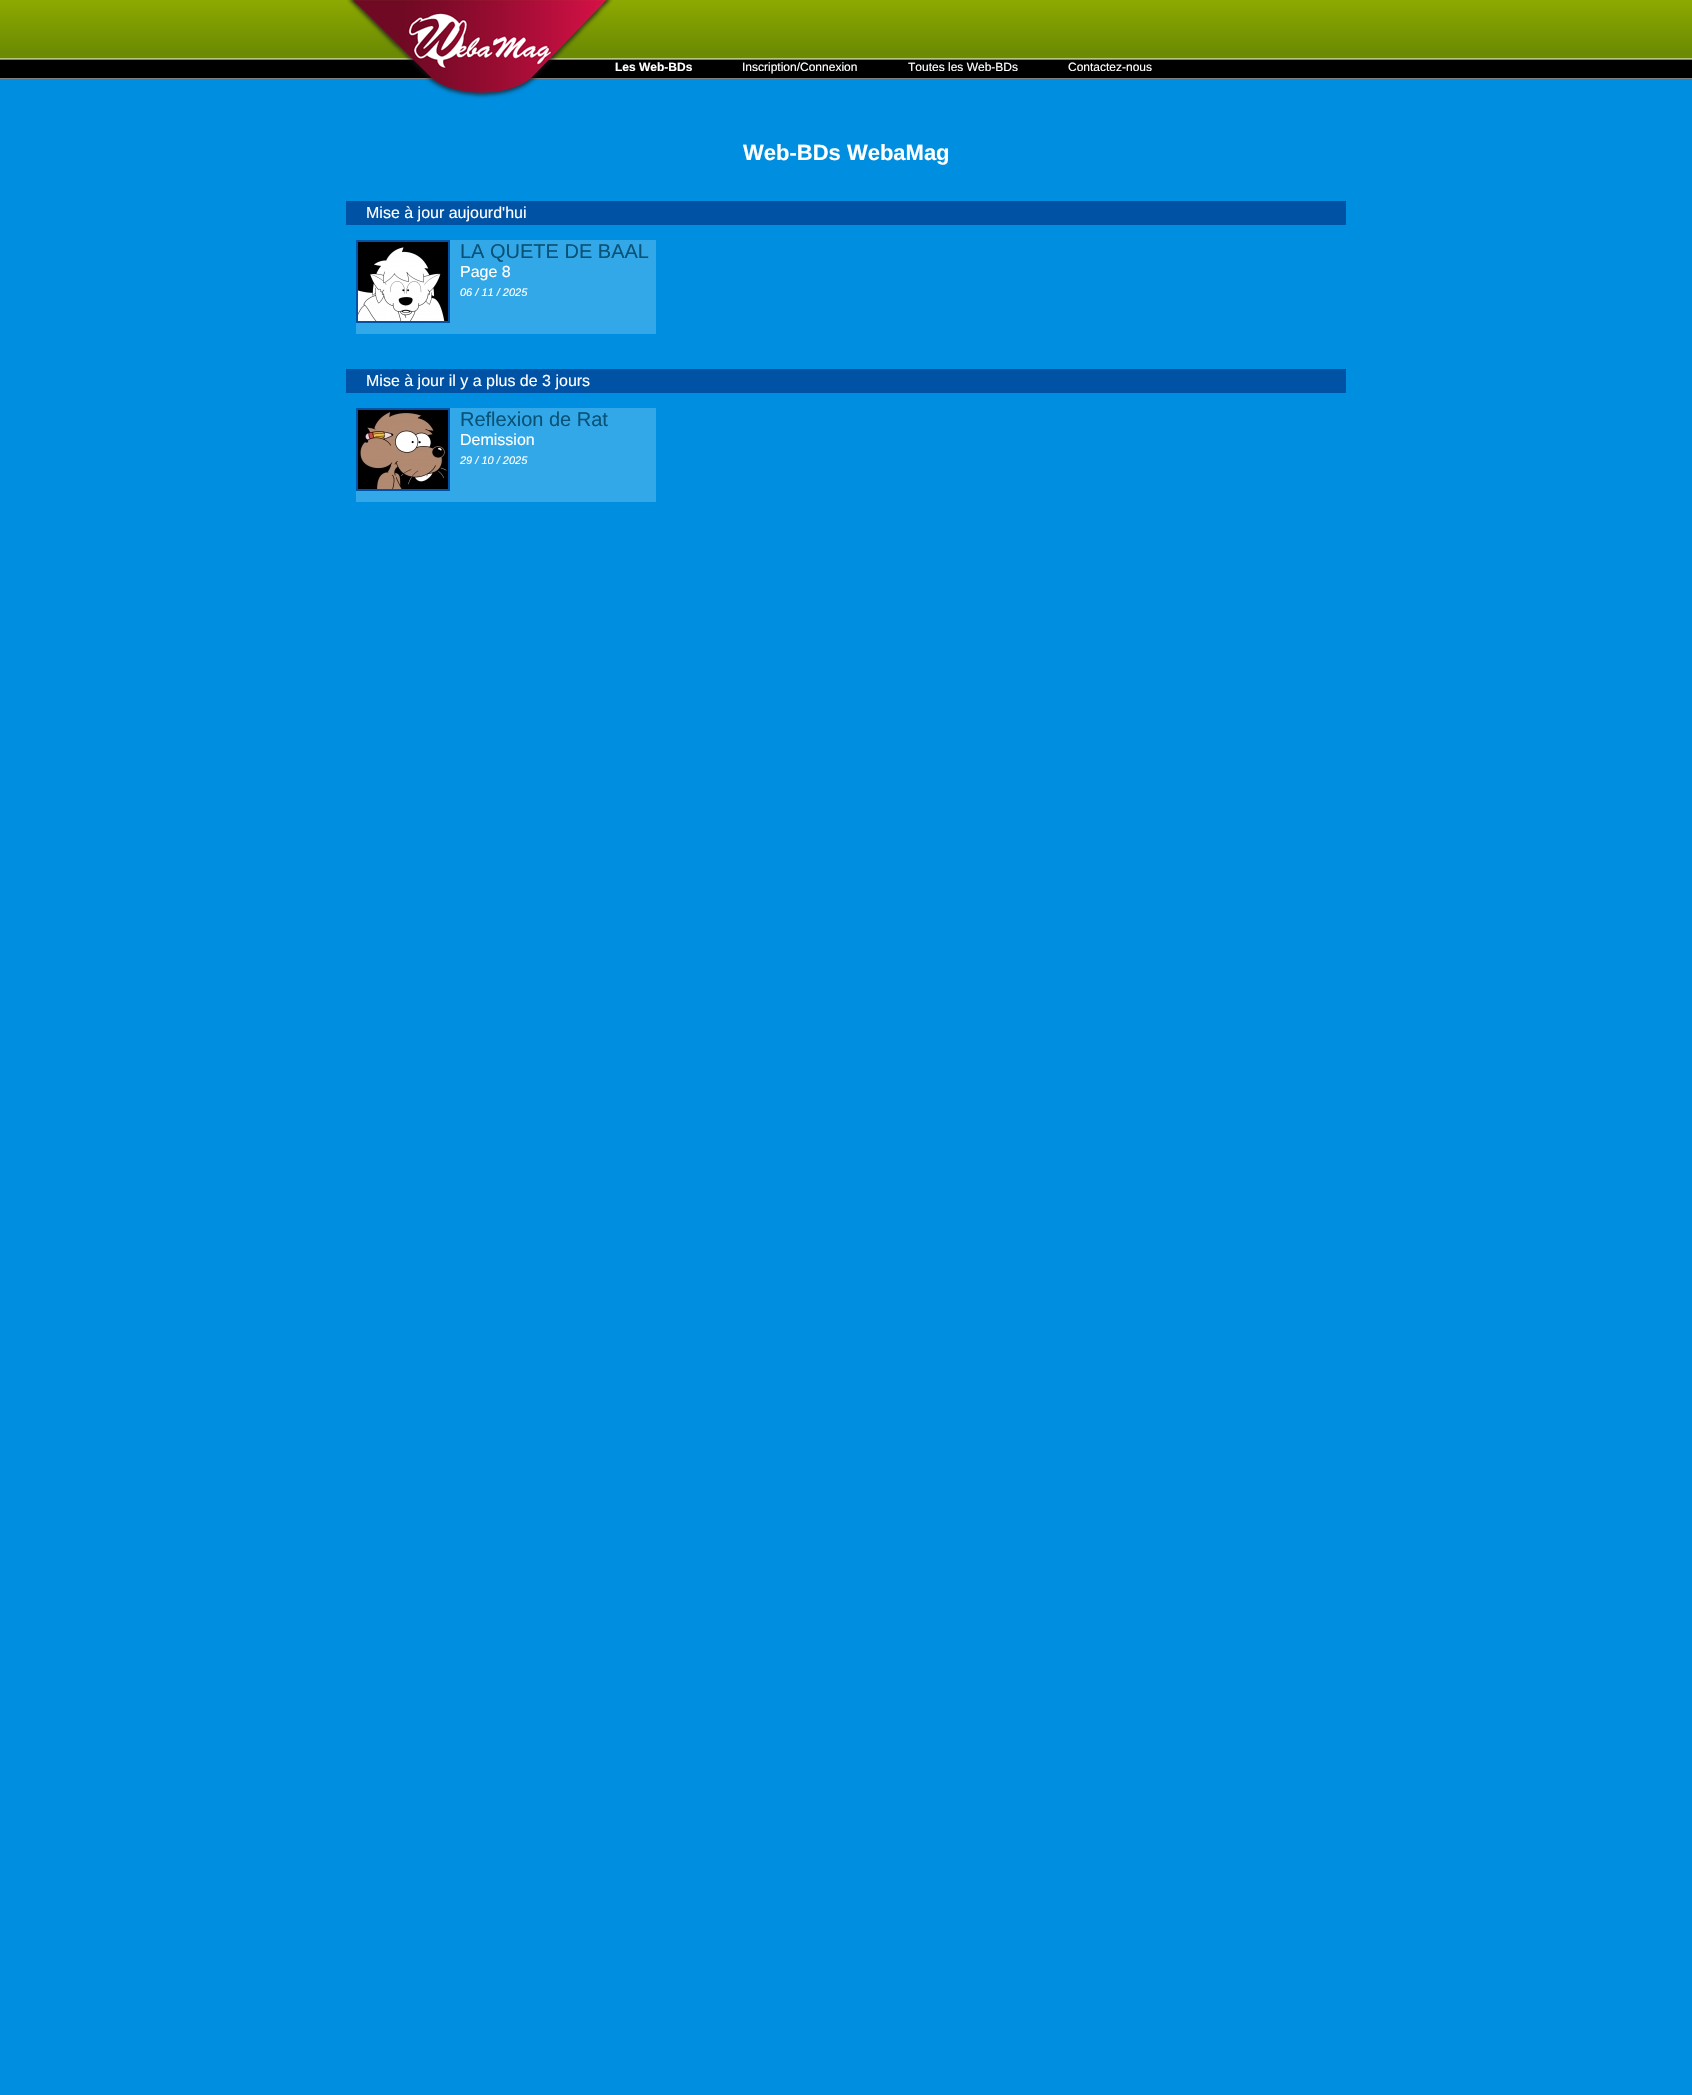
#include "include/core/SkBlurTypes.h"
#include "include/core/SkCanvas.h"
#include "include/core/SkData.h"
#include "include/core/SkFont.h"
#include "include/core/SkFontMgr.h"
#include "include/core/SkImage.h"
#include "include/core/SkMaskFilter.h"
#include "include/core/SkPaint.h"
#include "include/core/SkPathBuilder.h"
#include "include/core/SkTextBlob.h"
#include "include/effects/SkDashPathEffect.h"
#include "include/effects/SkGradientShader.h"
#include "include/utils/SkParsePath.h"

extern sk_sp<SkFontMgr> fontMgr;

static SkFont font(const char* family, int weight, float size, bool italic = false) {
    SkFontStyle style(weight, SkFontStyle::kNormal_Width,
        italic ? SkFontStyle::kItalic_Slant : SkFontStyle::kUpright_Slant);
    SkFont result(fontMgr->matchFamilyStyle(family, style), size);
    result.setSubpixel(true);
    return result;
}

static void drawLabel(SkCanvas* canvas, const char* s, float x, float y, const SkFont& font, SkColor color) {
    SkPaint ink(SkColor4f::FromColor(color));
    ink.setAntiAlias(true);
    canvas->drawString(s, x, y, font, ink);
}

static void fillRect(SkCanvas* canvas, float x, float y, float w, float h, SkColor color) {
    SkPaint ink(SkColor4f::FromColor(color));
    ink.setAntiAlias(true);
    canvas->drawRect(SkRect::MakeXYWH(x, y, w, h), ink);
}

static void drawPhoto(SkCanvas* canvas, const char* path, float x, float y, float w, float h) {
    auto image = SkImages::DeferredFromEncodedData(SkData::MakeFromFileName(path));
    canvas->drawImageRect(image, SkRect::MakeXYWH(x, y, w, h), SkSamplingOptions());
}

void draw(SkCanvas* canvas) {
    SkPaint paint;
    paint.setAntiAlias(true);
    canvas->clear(0xFF008EE0);
    drawPhoto(canvas, "assets/img1.png", 0, 0, 1692, 79);
    drawPhoto(canvas, "assets/img2.png", 347, 0, 266, 99);
    SkFont font1 = font("Liberation Sans", 700, 12);
    drawLabel(canvas, "Les Web-BDs", 615, 71, font1, 0xFFFFFFFF);
    SkFont font2 = font("Liberation Sans", 400, 12);
    drawLabel(canvas, "Inscription/Connexion", 742, 71, font2, 0xFFFFFFFF);
    drawLabel(canvas, "Toutes les Web-BDs", 908, 71, font2, 0xFFFFFFFF);
    drawLabel(canvas, "Contactez-nous", 1068, 71, font2, 0xFFFFFFFF);
    SkFont font3 = font("Liberation Sans", 700, 22);
    drawLabel(canvas, "Web-BDs WebaMag", 743, 160, font3, 0xFFFFFFFF);
    fillRect(canvas, 346, 201, 1000, 24, 0xFF0052A4);
    SkFont font4 = font("Liberation Sans", 400, 16);
    drawLabel(canvas, "Mise à jour aujourd'hui", 366, 218, font4, 0xFFFFFFFF);
    fillRect(canvas, 356, 240, 300, 94, 0xFF33A8E8);
    paint.setStroke(true);
    paint.setStrokeWidth(2);
    paint.setColor(0xFF0052A4);
    canvas->drawRect(SkRect::MakeXYWH(357, 241, 92, 81), paint);
    drawPhoto(canvas, "assets/img3.png", 358, 242, 90, 79);
    SkFont font5 = font("Liberation Sans", 400, 20);
    drawLabel(canvas, "LA QUETE DE BAAL", 460, 258, font5, 0xFF085277);
    drawLabel(canvas, "Page 8", 460, 277, font4, 0xFFFFFFFF);
    SkFont font6 = font("Liberation Sans", 400, 11, true);
    drawLabel(canvas, "06 / 11 / 2025", 460, 296, font6, 0xFFFFFFFF);
    fillRect(canvas, 346, 369, 1000, 24, 0xFF0052A4);
    drawLabel(canvas, "Mise à jour il y a plus de 3 jours", 366, 386, font4, 0xFFFFFFFF);
    fillRect(canvas, 356, 408, 300, 94, 0xFF33A8E8);
    canvas->drawRect(SkRect::MakeXYWH(357, 409, 92, 81), paint);
    drawPhoto(canvas, "assets/img4.png", 358, 410, 90, 79);
    drawLabel(canvas, "Reflexion de Rat", 460, 426, font5, 0xFF085277);
    drawLabel(canvas, "Demission", 460, 445, font4, 0xFFFFFFFF);
    drawLabel(canvas, "29 / 10 / 2025", 460, 464, font6, 0xFFFFFFFF);
}
